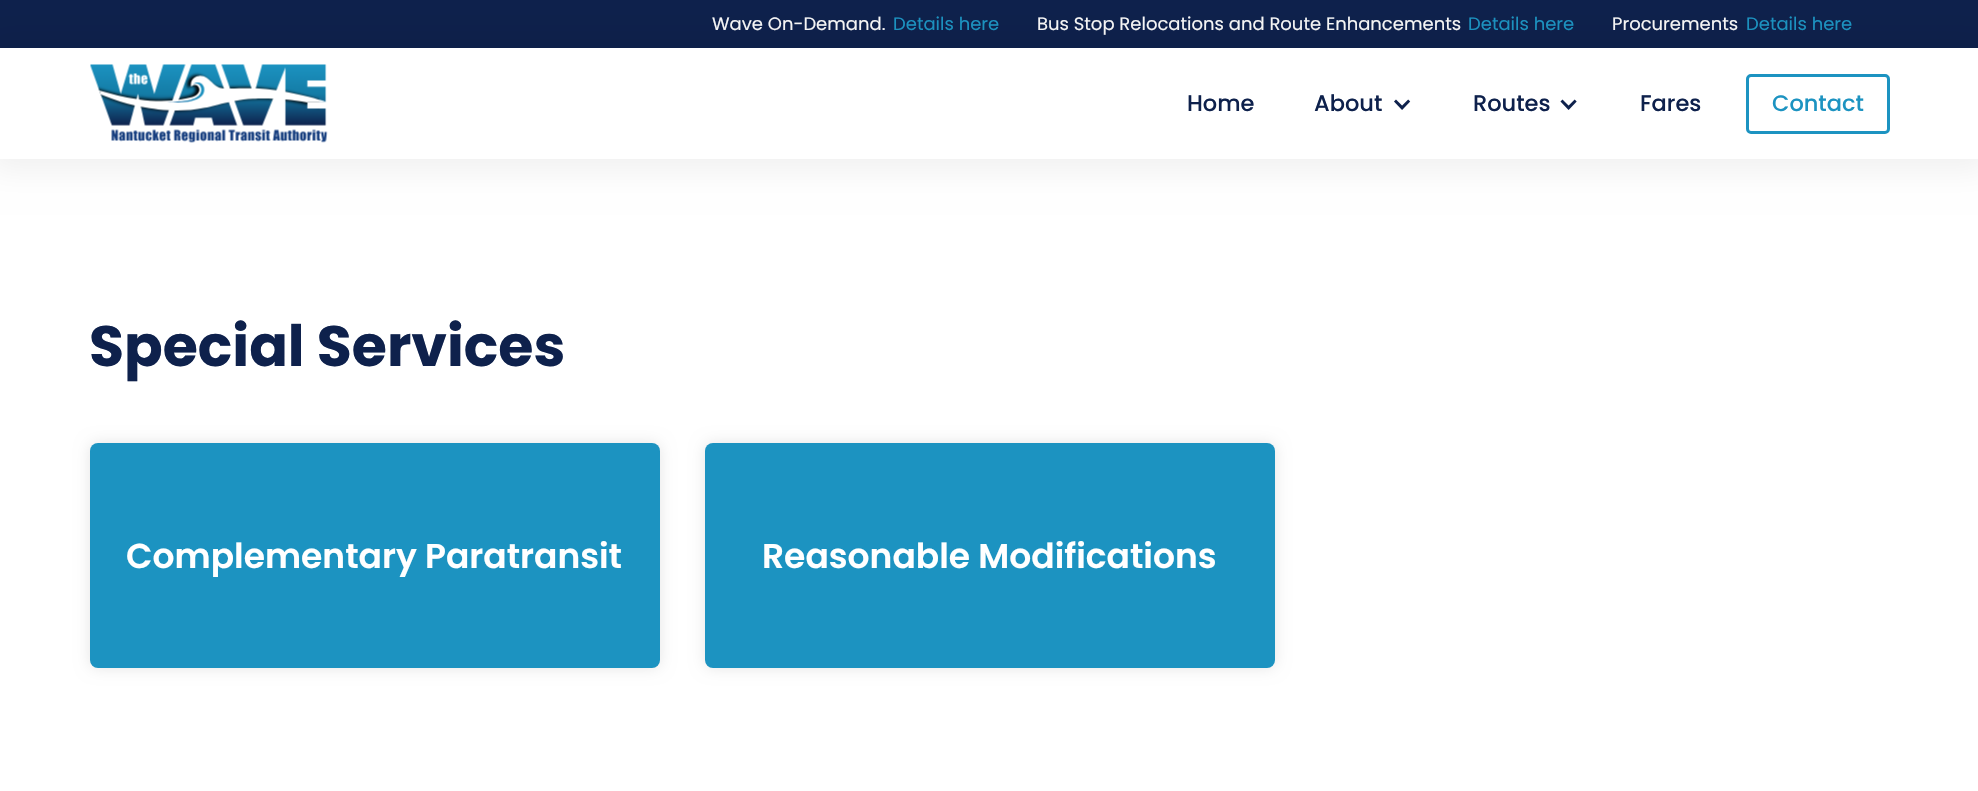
#include "include/core/SkBlurTypes.h"
#include "include/core/SkCanvas.h"
#include "include/core/SkData.h"
#include "include/core/SkFont.h"
#include "include/core/SkFontMgr.h"
#include "include/core/SkImage.h"
#include "include/core/SkMaskFilter.h"
#include "include/core/SkPaint.h"
#include "include/core/SkPathBuilder.h"
#include "include/core/SkTextBlob.h"
#include "include/effects/SkDashPathEffect.h"
#include "include/effects/SkGradientShader.h"
#include "include/utils/SkParsePath.h"

extern sk_sp<SkFontMgr> fontMgr;

static SkFont font(const char* family, int weight, float size, bool italic = false) {
    SkFontStyle style(weight, SkFontStyle::kNormal_Width,
        italic ? SkFontStyle::kItalic_Slant : SkFontStyle::kUpright_Slant);
    SkFont result(fontMgr->matchFamilyStyle(family, style), size);
    result.setSubpixel(true);
    return result;
}

static void drawLabel(SkCanvas* canvas, const char* s, float x, float y, const SkFont& font, SkColor color) {
    SkPaint ink(SkColor4f::FromColor(color));
    ink.setAntiAlias(true);
    canvas->drawString(s, x, y, font, ink);
}

static void fillRect(SkCanvas* canvas, float x, float y, float w, float h, SkColor color) {
    SkPaint ink(SkColor4f::FromColor(color));
    ink.setAntiAlias(true);
    canvas->drawRect(SkRect::MakeXYWH(x, y, w, h), ink);
}

static void fillRRect(SkCanvas* canvas, float x, float y, float w, float h, float radius, SkColor color) {
    SkPaint ink(SkColor4f::FromColor(color));
    ink.setAntiAlias(true);
    canvas->drawRoundRect(SkRect::MakeXYWH(x, y, w, h), radius, radius, ink);
}

static void drawPhoto(SkCanvas* canvas, const char* path, float x, float y, float w, float h) {
    auto image = SkImages::DeferredFromEncodedData(SkData::MakeFromFileName(path));
    canvas->drawImageRect(image, SkRect::MakeXYWH(x, y, w, h), SkSamplingOptions());
}

void draw(SkCanvas* canvas) {
    SkPaint paint;
    paint.setAntiAlias(true);
    canvas->clear(0xFF0E214C);
    SkFont font1 = font("Poppins", 400, 18);
    drawLabel(canvas, "Wave On-Demand.", 712, 30, font1, 0xFFF8F8F8);
    drawLabel(canvas, "Details here", 893, 30, font1, 0xFF1C93C1);
    drawLabel(canvas, "Bus Stop Relocations and Route Enhancements", 1037, 30, font1, 0xFFF8F8F8);
    drawLabel(canvas, "Details here", 1468, 30, font1, 0xFF1C93C1);
    drawLabel(canvas, "Procurements", 1612, 30, font1, 0xFFF8F8F8);
    drawLabel(canvas, "Details here", 1746, 30, font1, 0xFF1C93C1);
    fillRect(canvas, 0, 159, 1978, 632, 0xFFFFFFFF);
    paint.setColor(0x0F000000);
    paint.setMaskFilter(SkMaskFilter::MakeBlur(kNormal_SkBlurStyle, 15));
    canvas->drawRect(SkRect::MakeXYWH(-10, 38, 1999, 132), paint);
    paint.setMaskFilter(nullptr);
    fillRect(canvas, 0, 48, 1978, 111, 0xFFFFFFFF);
    drawPhoto(canvas, "assets/img1.png", 90, 64, 238, 79);
    SkFont font2 = font("Poppins", 500, 22.5f);
    drawLabel(canvas, "Home", 1187, 111, font2, 0xFF0E214C);
    drawLabel(canvas, "About", 1314, 111, font2, 0xFF0E214C);
    drawPhoto(canvas, "assets/img2.png", 1394, 99, 17, 11);
    drawLabel(canvas, "Routes", 1473, 111, font2, 0xFF0E214C);
    drawPhoto(canvas, "assets/img3.png", 1560, 99, 17, 11);
    drawLabel(canvas, "Fares", 1640, 111, font2, 0xFF0E214C);
    paint.setStroke(true);
    paint.setStrokeWidth(3);
    paint.setColor(0xFF1C93C1);
    canvas->drawRoundRect(SkRect::MakeXYWH(1747.5f, 75.5f, 141, 57), 3.5f, 3.5f, paint);
    drawLabel(canvas, "Contact", 1772, 111, font2, 0xFF1C93C1);
    SkFont font3 = font("Poppins", 700, 57);
    drawLabel(canvas, "Special Services", 89, 366, font3, 0xFF0E214C);
    paint.setStroke(false);
    paint.setColor(0x1A000000);
    paint.setMaskFilter(SkMaskFilter::MakeBlur(kNormal_SkBlurStyle, 7.5f));
    canvas->drawRoundRect(SkRect::MakeXYWH(90, 443, 570, 225), 8, 8, paint);
    paint.setMaskFilter(nullptr);
    fillRRect(canvas, 90, 443, 570, 225, 8, 0xFF1C93C1);
    SkFont font4 = font("Poppins", 600, 34.5f);
    drawLabel(canvas, "Complementary Paratransit", 126, 568, font4, 0xFFFFFFFF);
    paint.setMaskFilter(SkMaskFilter::MakeBlur(kNormal_SkBlurStyle, 7.5f));
    canvas->drawRoundRect(SkRect::MakeXYWH(705, 443, 570, 225), 8, 8, paint);
    paint.setMaskFilter(nullptr);
    fillRRect(canvas, 705, 443, 570, 225, 8, 0xFF1C93C1);
    drawLabel(canvas, "Reasonable Modifications", 762, 568, font4, 0xFFFFFFFF);
}
